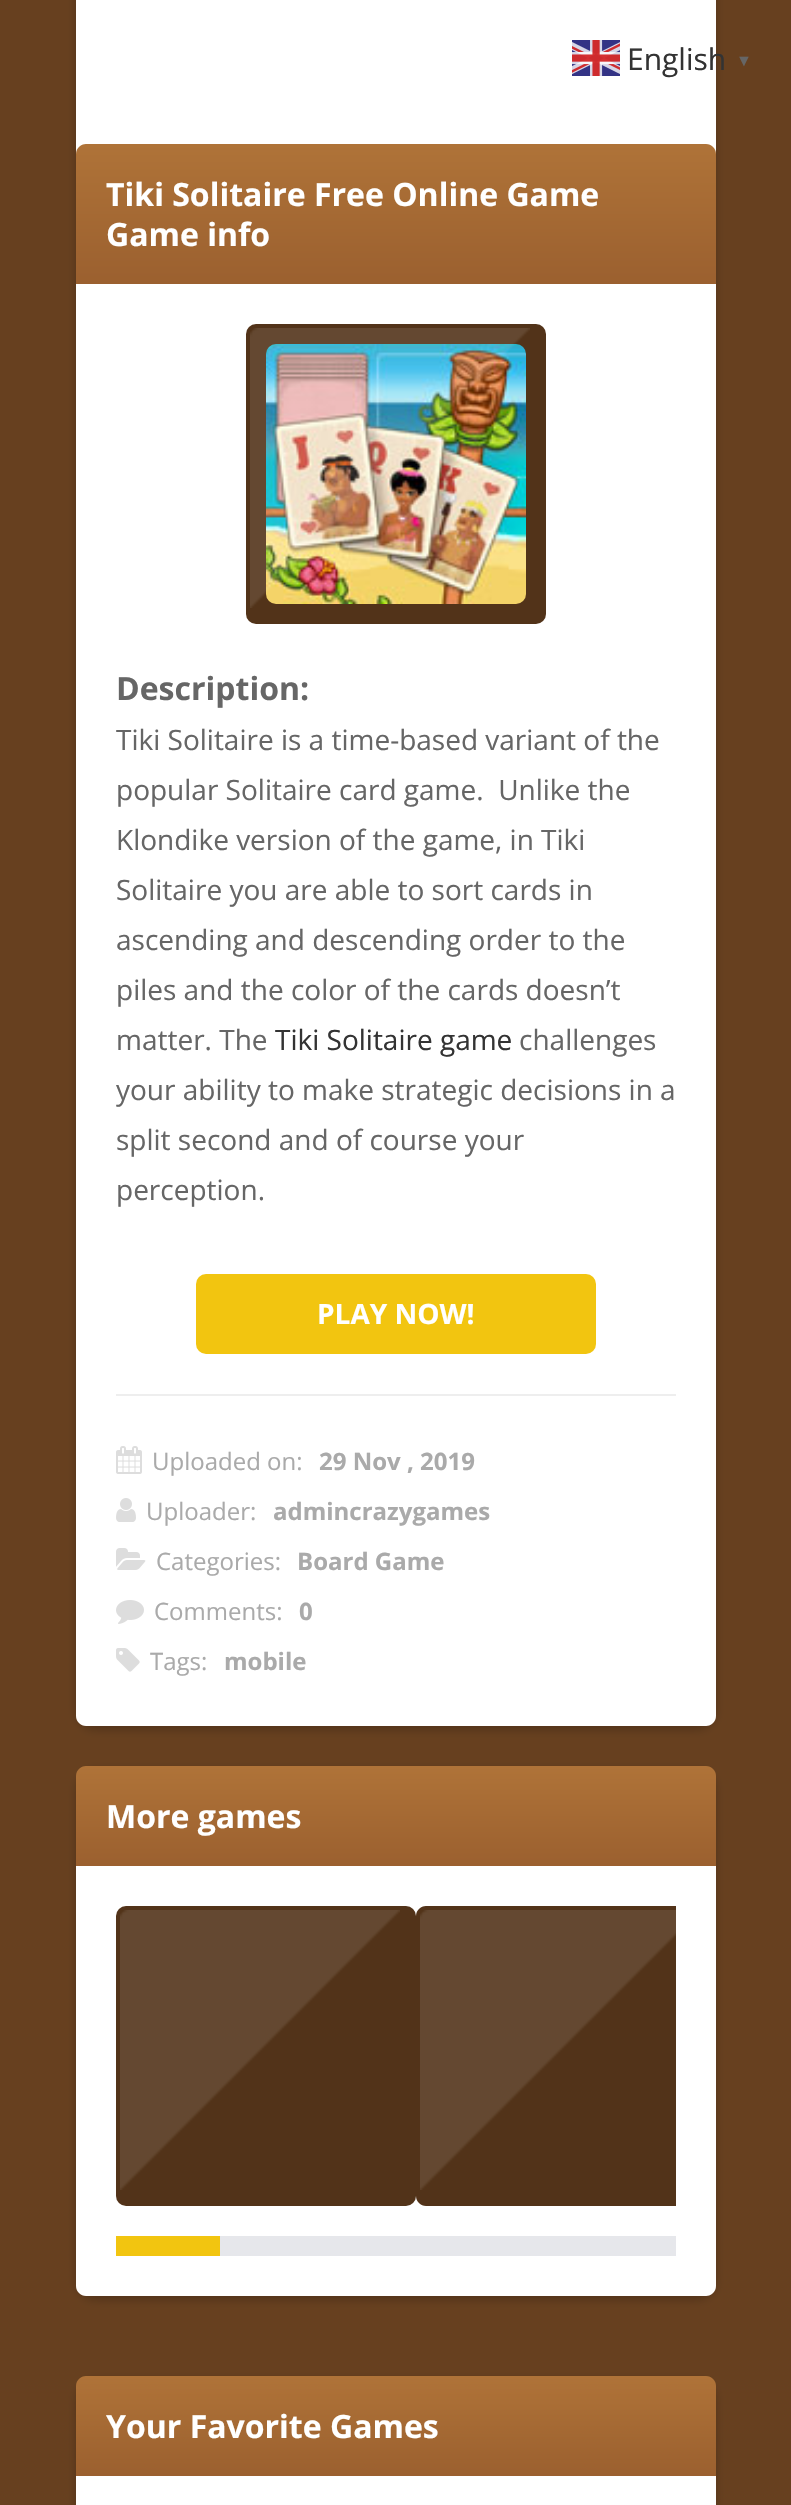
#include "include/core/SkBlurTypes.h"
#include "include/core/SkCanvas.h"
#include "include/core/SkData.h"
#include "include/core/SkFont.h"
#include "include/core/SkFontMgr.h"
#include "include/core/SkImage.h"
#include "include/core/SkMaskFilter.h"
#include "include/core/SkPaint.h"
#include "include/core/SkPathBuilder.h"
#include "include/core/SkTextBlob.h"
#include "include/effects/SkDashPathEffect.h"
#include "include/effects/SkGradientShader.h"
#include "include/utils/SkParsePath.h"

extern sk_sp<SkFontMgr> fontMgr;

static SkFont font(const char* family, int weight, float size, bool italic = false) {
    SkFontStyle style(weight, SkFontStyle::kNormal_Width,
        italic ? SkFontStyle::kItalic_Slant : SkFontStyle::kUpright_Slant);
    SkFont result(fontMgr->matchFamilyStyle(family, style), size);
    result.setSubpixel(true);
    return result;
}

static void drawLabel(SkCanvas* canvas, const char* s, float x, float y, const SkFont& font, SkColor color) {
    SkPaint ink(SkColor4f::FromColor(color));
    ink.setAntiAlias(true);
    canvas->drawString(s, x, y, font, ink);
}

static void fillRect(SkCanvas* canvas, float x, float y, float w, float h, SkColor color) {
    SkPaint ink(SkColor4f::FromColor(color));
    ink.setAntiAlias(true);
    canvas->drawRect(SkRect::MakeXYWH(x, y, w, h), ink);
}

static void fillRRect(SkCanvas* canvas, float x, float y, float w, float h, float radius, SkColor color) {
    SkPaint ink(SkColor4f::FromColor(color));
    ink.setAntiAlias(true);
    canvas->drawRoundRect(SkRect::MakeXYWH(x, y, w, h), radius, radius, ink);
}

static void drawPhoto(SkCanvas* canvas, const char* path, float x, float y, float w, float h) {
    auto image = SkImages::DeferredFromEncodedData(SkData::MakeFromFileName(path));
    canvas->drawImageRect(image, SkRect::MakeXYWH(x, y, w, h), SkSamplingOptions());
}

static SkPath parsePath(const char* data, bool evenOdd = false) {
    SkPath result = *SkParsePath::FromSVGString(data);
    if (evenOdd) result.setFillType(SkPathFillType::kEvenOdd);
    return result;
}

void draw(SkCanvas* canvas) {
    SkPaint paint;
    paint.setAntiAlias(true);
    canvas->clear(0xFF67401F);
    paint.setColor(0xFF523319);
    paint.setMaskFilter(SkMaskFilter::MakeBlur(kNormal_SkBlurStyle, 5));
    canvas->drawRoundRect(SkRect::MakeXYWH(76, -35, 640, 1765), 20, 20, paint);
    paint.setMaskFilter(nullptr);
    paint.setColor(0xFFFFFFFF);
    canvas->drawPath(parsePath("M96-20H696C707-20 716-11 716 0V1716C716 1721.5 711.5 1726 706 1726H86C80.5 1726 76 1721.5 76 1716V0C76-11 85-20 96-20Z"), paint);
    drawPhoto(canvas, "assets/img1.png", 572, 40, 48, 36);
    SkFont font1 = font("Open Sans", 400, 30);
    drawLabel(canvas, "English", 627, 70, font1, 0xFF333333);
    SkFont font2 = font("Liberation Sans", 700, 16);
    drawLabel(canvas, "▼", 736, 66, font2, 0xFF666666);
    {
        const SkColor colors[] = {0xFFAF7338, 0xFF9B602F};
        const float stops[] = {0, 1};
        const SkPoint ends[] = {{396, 144}, {396, 284}};
        paint.setShader(SkGradientShader::MakeLinear(ends, colors, stops, 2, SkTileMode::kClamp));
        paint.setAlpha(255);
    }
    canvas->drawPath(parsePath("M86 144H706C711.5 144 716 148.5 716 154V284H76V154C76 148.5 80.5 144 86 144Z"), paint);
    SkFont font3 = font("Open Sans", 700, 32);
    drawLabel(canvas, "Tiki Solitaire Free Online Game", 106, 206, font3, 0xFFFFFFFF);
    drawLabel(canvas, "Game info", 106, 246, font3, 0xFFFFFFFF);
    fillRRect(canvas, 246, 324, 300, 300, 10, 0xFF523319);
    drawPhoto(canvas, "assets/img3.png", 266, 344, 260, 260);
    drawPhoto(canvas, "assets/img2.png", 250, 328, 280, 280);
    drawLabel(canvas, "Description:", 116, 700, font3, 0xFF666666);
    SkFont font4 = font("Open Sans", 400, 28);
    drawLabel(canvas, "Tiki Solitaire is a time-based variant of the", 116, 750, font4, 0xFF666666);
    drawLabel(canvas, "popular Solitaire card game.  Unlike the", 116, 800, font4, 0xFF666666);
    drawLabel(canvas, "Klondike version of the game, in Tiki", 116, 850, font4, 0xFF666666);
    drawLabel(canvas, "Solitaire you are able to sort cards in", 116, 900, font4, 0xFF666666);
    drawLabel(canvas, "ascending and descending order to the", 116, 950, font4, 0xFF666666);
    drawLabel(canvas, "piles and the color of the cards doesn’t", 116, 1000, font4, 0xFF666666);
    drawLabel(canvas, "matter. The", 116, 1050, font4, 0xFF666666);
    drawLabel(canvas, "Tiki Solitaire game", 275, 1050, font4, 0xFF333333);
    drawLabel(canvas, "challenges", 519, 1050, font4, 0xFF666666);
    drawLabel(canvas, "your ability to make strategic decisions in a", 116, 1100, font4, 0xFF666666);
    drawLabel(canvas, "split second and of course your", 116, 1150, font4, 0xFF666666);
    drawLabel(canvas, "perception.", 116, 1200, font4, 0xFF666666);
    fillRRect(canvas, 196, 1274, 400, 80, 10, 0xFFF2C510);
    SkFont font5 = font("Open Sans", 700, 28);
    drawLabel(canvas, "PLAY NOW!", 317, 1324, font5, 0xFFFFFFFF);
    fillRect(canvas, 116, 1394, 560, 2, 0xFFEEEEEE);
    drawPhoto(canvas, "assets/img4.png", 116, 1446, 26, 28);
    SkFont font6 = font("Open Sans", 400, 24);
    drawLabel(canvas, "Uploaded on:", 152, 1470, font6, 0xFFAAAAAA);
    SkFont font7 = font("Open Sans", 700, 24);
    drawLabel(canvas, "29 Nov , 2019", 319, 1470, font7, 0xFFAAAAAA);
    drawPhoto(canvas, "assets/img5.png", 116, 1498, 20, 24);
    drawLabel(canvas, "Uploader:", 146, 1520, font6, 0xFFAAAAAA);
    drawLabel(canvas, "admincrazygames", 273, 1520, font7, 0xFFAAAAAA);
    drawPhoto(canvas, "assets/img6.png", 116, 1548, 30, 22);
    drawLabel(canvas, "Categories:", 156, 1570, font6, 0xFFAAAAAA);
    drawLabel(canvas, "Board Game", 297, 1570, font7, 0xFFAAAAAA);
    drawPhoto(canvas, "assets/img7.png", 116, 1600, 28, 24);
    drawLabel(canvas, "Comments:", 154, 1620, font6, 0xFFAAAAAA);
    drawLabel(canvas, "0", 299, 1620, font7, 0xFFAAAAAA);
    drawPhoto(canvas, "assets/img8.png", 116, 1648, 24, 24);
    drawLabel(canvas, "Tags:", 150, 1670, font6, 0xFFAAAAAA);
    drawLabel(canvas, "mobile", 224, 1670, font7, 0xFFAAAAAA);
    paint.setShader(nullptr);
    paint.setColor(0xFF523319);
    paint.setMaskFilter(SkMaskFilter::MakeBlur(kNormal_SkBlurStyle, 5));
    canvas->drawRoundRect(SkRect::MakeXYWH(76, 1770, 640, 530), 20, 20, paint);
    paint.setMaskFilter(nullptr);
    paint.setColor(0xFFFFFFFF);
    canvas->drawPath(parsePath("M96 1766H696C707 1766 716 1775 716 1786V2286C716 2291.5 711.5 2296 706 2296H86C80.5 2296 76 2291.5 76 2286V1786C76 1775 85 1766 96 1766Z"), paint);
    {
        const SkColor colors[] = {0xFFAF7338, 0xFF9B602F};
        const float stops[] = {0, 1};
        const SkPoint ends[] = {{396, 1766}, {396, 1866}};
        paint.setShader(SkGradientShader::MakeLinear(ends, colors, stops, 2, SkTileMode::kClamp));
        paint.setAlpha(255);
    }
    canvas->drawPath(parsePath("M86 1766H706C711.5 1766 716 1770.5 716 1776V1866H76V1776C76 1770.5 80.5 1766 86 1766Z"), paint);
    drawLabel(canvas, "More games", 106, 1828, font3, 0xFFFFFFFF);
    fillRRect(canvas, 116, 1906, 300, 300, 10, 0xFF523319);
    drawPhoto(canvas, "assets/img9.png", 120, 1910, 280, 280);
    paint.setShader(nullptr);
    paint.setColor(0xFF523319);
    canvas->drawPath(parsePath("M426 1906H676V2206H426C420.5 2206 416 2201.5 416 2196V1916C416 1910.5 420.5 1906 426 1906Z"), paint);
    drawPhoto(canvas, "assets/img10.png", 420, 1910, 256, 280);
    fillRect(canvas, 116, 2236, 104, 20, 0xFFF2C510);
    fillRect(canvas, 220, 2236, 456, 20, 0xFFE6E7EB);
    paint.setMaskFilter(SkMaskFilter::MakeBlur(kNormal_SkBlurStyle, 5));
    canvas->drawRoundRect(SkRect::MakeXYWH(76, 2380, 640, 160), 20, 20, paint);
    paint.setMaskFilter(nullptr);
    paint.setColor(0xFFFFFFFF);
    canvas->drawPath(parsePath("M96 2376H696C707 2376 716 2385 716 2396V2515C716 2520.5 711.5 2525 706 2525H86C80.5 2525 76 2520.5 76 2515V2396C76 2385 85 2376 96 2376Z"), paint);
    {
        const SkColor colors[] = {0xFFAF7338, 0xFF9B602F};
        const float stops[] = {0, 1};
        const SkPoint ends[] = {{396, 2376}, {396, 2476}};
        paint.setShader(SkGradientShader::MakeLinear(ends, colors, stops, 2, SkTileMode::kClamp));
        paint.setAlpha(255);
    }
    canvas->drawPath(parsePath("M86 2376H706C711.5 2376 716 2380.5 716 2386V2476H76V2386C76 2380.5 80.5 2376 86 2376Z"), paint);
    drawLabel(canvas, "Your Favorite Games", 106, 2438, font3, 0xFFFFFFFF);
}
